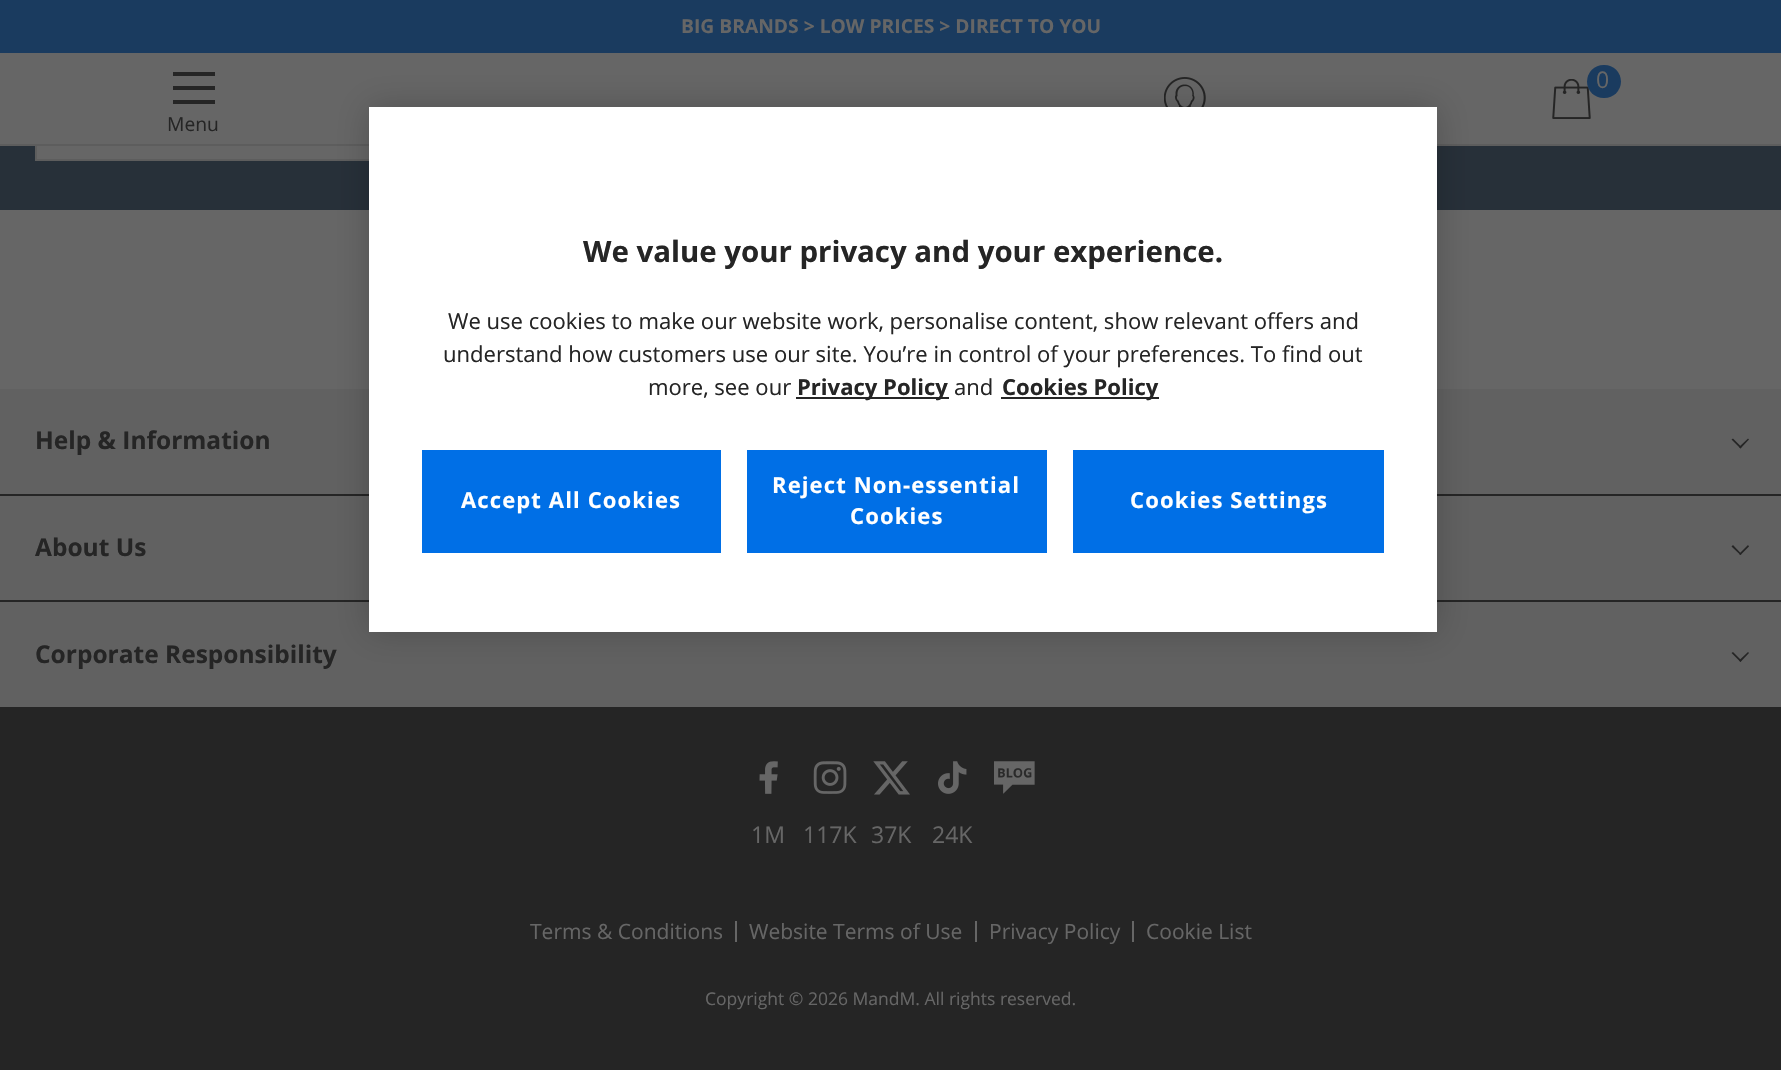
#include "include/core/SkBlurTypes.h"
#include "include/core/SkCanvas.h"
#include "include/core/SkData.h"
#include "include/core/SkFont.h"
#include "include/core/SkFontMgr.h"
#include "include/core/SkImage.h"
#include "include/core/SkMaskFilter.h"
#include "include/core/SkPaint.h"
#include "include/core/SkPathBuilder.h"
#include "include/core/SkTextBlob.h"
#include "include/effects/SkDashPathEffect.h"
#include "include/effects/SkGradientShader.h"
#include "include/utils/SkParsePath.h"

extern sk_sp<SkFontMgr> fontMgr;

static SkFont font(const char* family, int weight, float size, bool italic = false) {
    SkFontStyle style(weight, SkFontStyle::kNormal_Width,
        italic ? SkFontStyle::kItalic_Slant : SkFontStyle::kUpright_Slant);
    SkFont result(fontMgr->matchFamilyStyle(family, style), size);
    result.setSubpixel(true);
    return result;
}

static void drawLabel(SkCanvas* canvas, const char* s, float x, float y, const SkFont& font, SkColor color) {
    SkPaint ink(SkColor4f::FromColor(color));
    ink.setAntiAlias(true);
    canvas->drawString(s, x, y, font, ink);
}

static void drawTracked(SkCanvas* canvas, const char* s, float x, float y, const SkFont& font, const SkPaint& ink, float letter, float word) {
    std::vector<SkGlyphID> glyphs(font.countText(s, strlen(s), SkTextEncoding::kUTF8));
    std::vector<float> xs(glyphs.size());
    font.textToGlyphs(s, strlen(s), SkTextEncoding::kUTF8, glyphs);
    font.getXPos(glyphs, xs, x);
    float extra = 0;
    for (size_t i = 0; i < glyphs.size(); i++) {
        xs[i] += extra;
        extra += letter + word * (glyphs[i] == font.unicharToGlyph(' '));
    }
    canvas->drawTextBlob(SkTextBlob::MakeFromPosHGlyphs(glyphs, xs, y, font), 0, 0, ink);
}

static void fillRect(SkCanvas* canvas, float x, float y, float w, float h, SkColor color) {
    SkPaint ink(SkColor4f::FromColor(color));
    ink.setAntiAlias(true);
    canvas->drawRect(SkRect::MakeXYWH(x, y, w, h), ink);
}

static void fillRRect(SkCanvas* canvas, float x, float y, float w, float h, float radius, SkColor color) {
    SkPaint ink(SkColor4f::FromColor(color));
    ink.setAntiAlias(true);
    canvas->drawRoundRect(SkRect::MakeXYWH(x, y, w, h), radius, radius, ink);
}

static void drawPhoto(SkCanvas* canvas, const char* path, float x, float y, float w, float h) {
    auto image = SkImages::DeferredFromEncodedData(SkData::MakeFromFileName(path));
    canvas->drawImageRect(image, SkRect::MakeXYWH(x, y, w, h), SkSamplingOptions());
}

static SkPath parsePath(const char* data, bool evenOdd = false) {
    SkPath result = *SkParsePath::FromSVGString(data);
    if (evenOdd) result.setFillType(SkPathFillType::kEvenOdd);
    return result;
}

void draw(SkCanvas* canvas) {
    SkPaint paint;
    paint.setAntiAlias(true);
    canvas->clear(0xFF666666);
    fillRect(canvas, 0, 0, 1781, 53, 0xFF1A3B5F);
    SkFont font1 = font("Open Sans", 700, 19.25f);
    drawLabel(canvas, "BIG BRANDS > LOW PRICES > DIRECT TO YOU", 681, 33, font1, 0xFF666666);
    fillRect(canvas, 0, 144, 1781, 2, 0xFF5D5D5D);
    drawPhoto(canvas, "assets/img1.png", 1164, 77, 42, 30);
    drawPhoto(canvas, "assets/img2.png", 1552, 79, 39, 40);
    fillRRect(canvas, 1587, 65, 34, 33, 16.5f, 0xFF1A3B5F);
    SkFont font2 = font("Open Sans", 400, 23);
    drawLabel(canvas, "0", 1596, 88, font2, 0xFF666666);
    fillRect(canvas, 173, 72, 42, 4, 0xFF252525);
    fillRect(canvas, 173, 86, 42, 4, 0xFF252525);
    fillRect(canvas, 173, 100, 42, 4, 0xFF252525);
    SkFont font3 = font("Open Sans", 400, 19.25f);
    drawLabel(canvas, "Menu", 167, 131, font3, 0xFF252525);
    fillRect(canvas, 0, 146, 1781, 64, 0xFF273039);
    fillRect(canvas, 37, 146, 332, 13, 0xFF666666);
    fillRect(canvas, 35, 159, 334, 2, 0xFF5D5D5D);
    fillRect(canvas, 0, 389, 1781, 318, 0xFF616161);
    fillRect(canvas, 0, 494, 1781, 2, 0xFF252525);
    fillRect(canvas, 0, 600, 1781, 2, 0xFF252525);
    paint.setColor(0x33000000);
    paint.setMaskFilter(SkMaskFilter::MakeBlur(kNormal_SkBlurStyle, 16));
    canvas->drawRect(SkRect::MakeXYWH(369, 107, 1068, 525), paint);
    paint.setMaskFilter(nullptr);
    fillRect(canvas, 369, 107, 1068, 525, 0xFFFFFFFF);
    SkFont font4 = font("Open Sans", 700, 29.4f);
    drawLabel(canvas, "We value your privacy and your experience.", 583, 262, font4, 0xFF252525);
    SkFont font5 = font("Open Sans", 400, 22.05f);
    drawLabel(canvas, "We use cookies to make our website work, personalise content, show relevant offers and", 448, 329, font5, 0xFF252525);
    drawLabel(canvas, "understand how customers use our site. You’re in control of your preferences. To find out", 443, 362, font5, 0xFF252525);
    drawLabel(canvas, "more, see our", 648, 395, font5, 0xFF252525);
    fillRect(canvas, 796, 397, 153, 2, 0xFF252525);
    SkFont font6 = font("Open Sans", 700, 22.05f);
    drawLabel(canvas, "Privacy Policy", 797, 395, font6, 0xFF252525);
    drawLabel(canvas, "and", 954, 395, font5, 0xFF252525);
    fillRect(canvas, 1001, 397, 158, 2, 0xFF252525);
    drawLabel(canvas, "Cookies Policy", 1002, 395, font6, 0xFF252525);
    fillRect(canvas, 422, 450, 299, 103, 0xFF006FE6);
    paint.setColor(0xFFFFFFFF);
    drawTracked(canvas, "Accept All Cookies", 461, 508, font6, paint, 1.1f, 0);
    fillRect(canvas, 747, 450, 300, 103, 0xFF006FE6);
    drawTracked(canvas, "Reject Non-essential", 772, 493, font6, paint, 1.1f, 0);
    drawTracked(canvas, "Cookies", 850, 524, font6, paint, 1.1f, 0);
    fillRect(canvas, 1073, 450, 311, 103, 0xFF006FE6);
    drawTracked(canvas, "Cookies Settings", 1130, 508, font6, paint, 1.1f, 0);
    fillRect(canvas, 35, 146, 2, 15, 0xFF5D5D5D);
    SkFont font7 = font("Open Sans", 700, 24.5f);
    drawLabel(canvas, "Help & Information", 35, 449, font7, 0xFF252525);
    paint.setColor(0xFF252525);
    canvas->drawPath(parsePath("M1748 438.5L1749 439.5L1740.5 448.5L1739 447Z"), paint);
    canvas->drawPath(parsePath("M1733 438.5L1741.5 447L1740.5 448.5L1731.5 439.5Z"), paint);
    drawLabel(canvas, "About Us", 35, 556, font7, 0xFF252525);
    canvas->drawPath(parsePath("M1748 545L1749 546.5L1740.5 555L1739 554Z"), paint);
    canvas->drawPath(parsePath("M1733 545L1741.5 554L1740.5 555L1731.5 546.5Z"), paint);
    fillRect(canvas, 0, 707, 1781, 363, 0xFF252525);
    drawLabel(canvas, "Corporate Responsibility", 35, 663, font7, 0xFF252525);
    canvas->drawPath(parsePath("M1748 652L1749 653L1740.5 662L1739 660.5Z"), paint);
    canvas->drawPath(parsePath("M1733 652L1741.5 660.5L1740.5 662L1731.5 653Z"), paint);
    drawPhoto(canvas, "assets/img3.png", 994, 761, 41, 33);
    drawPhoto(canvas, "assets/img4.png", 759, 761, 19, 33);
    drawLabel(canvas, "1M", 751, 843, font2, 0xFF666666);
    drawPhoto(canvas, "assets/img5.png", 813, 761, 34, 33);
    drawLabel(canvas, "117K", 803, 843, font2, 0xFF666666);
    drawPhoto(canvas, "assets/img6.png", 873, 761, 37, 34);
    drawLabel(canvas, "37K", 871, 843, font2, 0xFF666666);
    drawPhoto(canvas, "assets/img7.png", 938, 761, 29, 33);
    drawLabel(canvas, "24K", 932, 843, font2, 0xFF666666);
    SkFont font8 = font("Open Sans", 400, 21);
    drawLabel(canvas, "Terms & Conditions", 530, 939, font8, 0xFF666666);
    fillRect(canvas, 735, 921, 2, 21, 0xFF666666);
    drawLabel(canvas, "Website Terms of Use", 749, 939, font8, 0xFF666666);
    fillRect(canvas, 975, 921, 2, 21, 0xFF666666);
    drawLabel(canvas, "Privacy Policy", 989, 939, font8, 0xFF666666);
    fillRect(canvas, 1132, 921, 2, 21, 0xFF666666);
    drawLabel(canvas, "Cookie List", 1146, 939, font8, 0xFF666666);
    SkFont font9 = font("Open Sans", 400, 17.5f);
    drawLabel(canvas, "Copyright © 2026 MandM. All rights reserved.", 705, 1005, font9, 0xFF666666);
}
